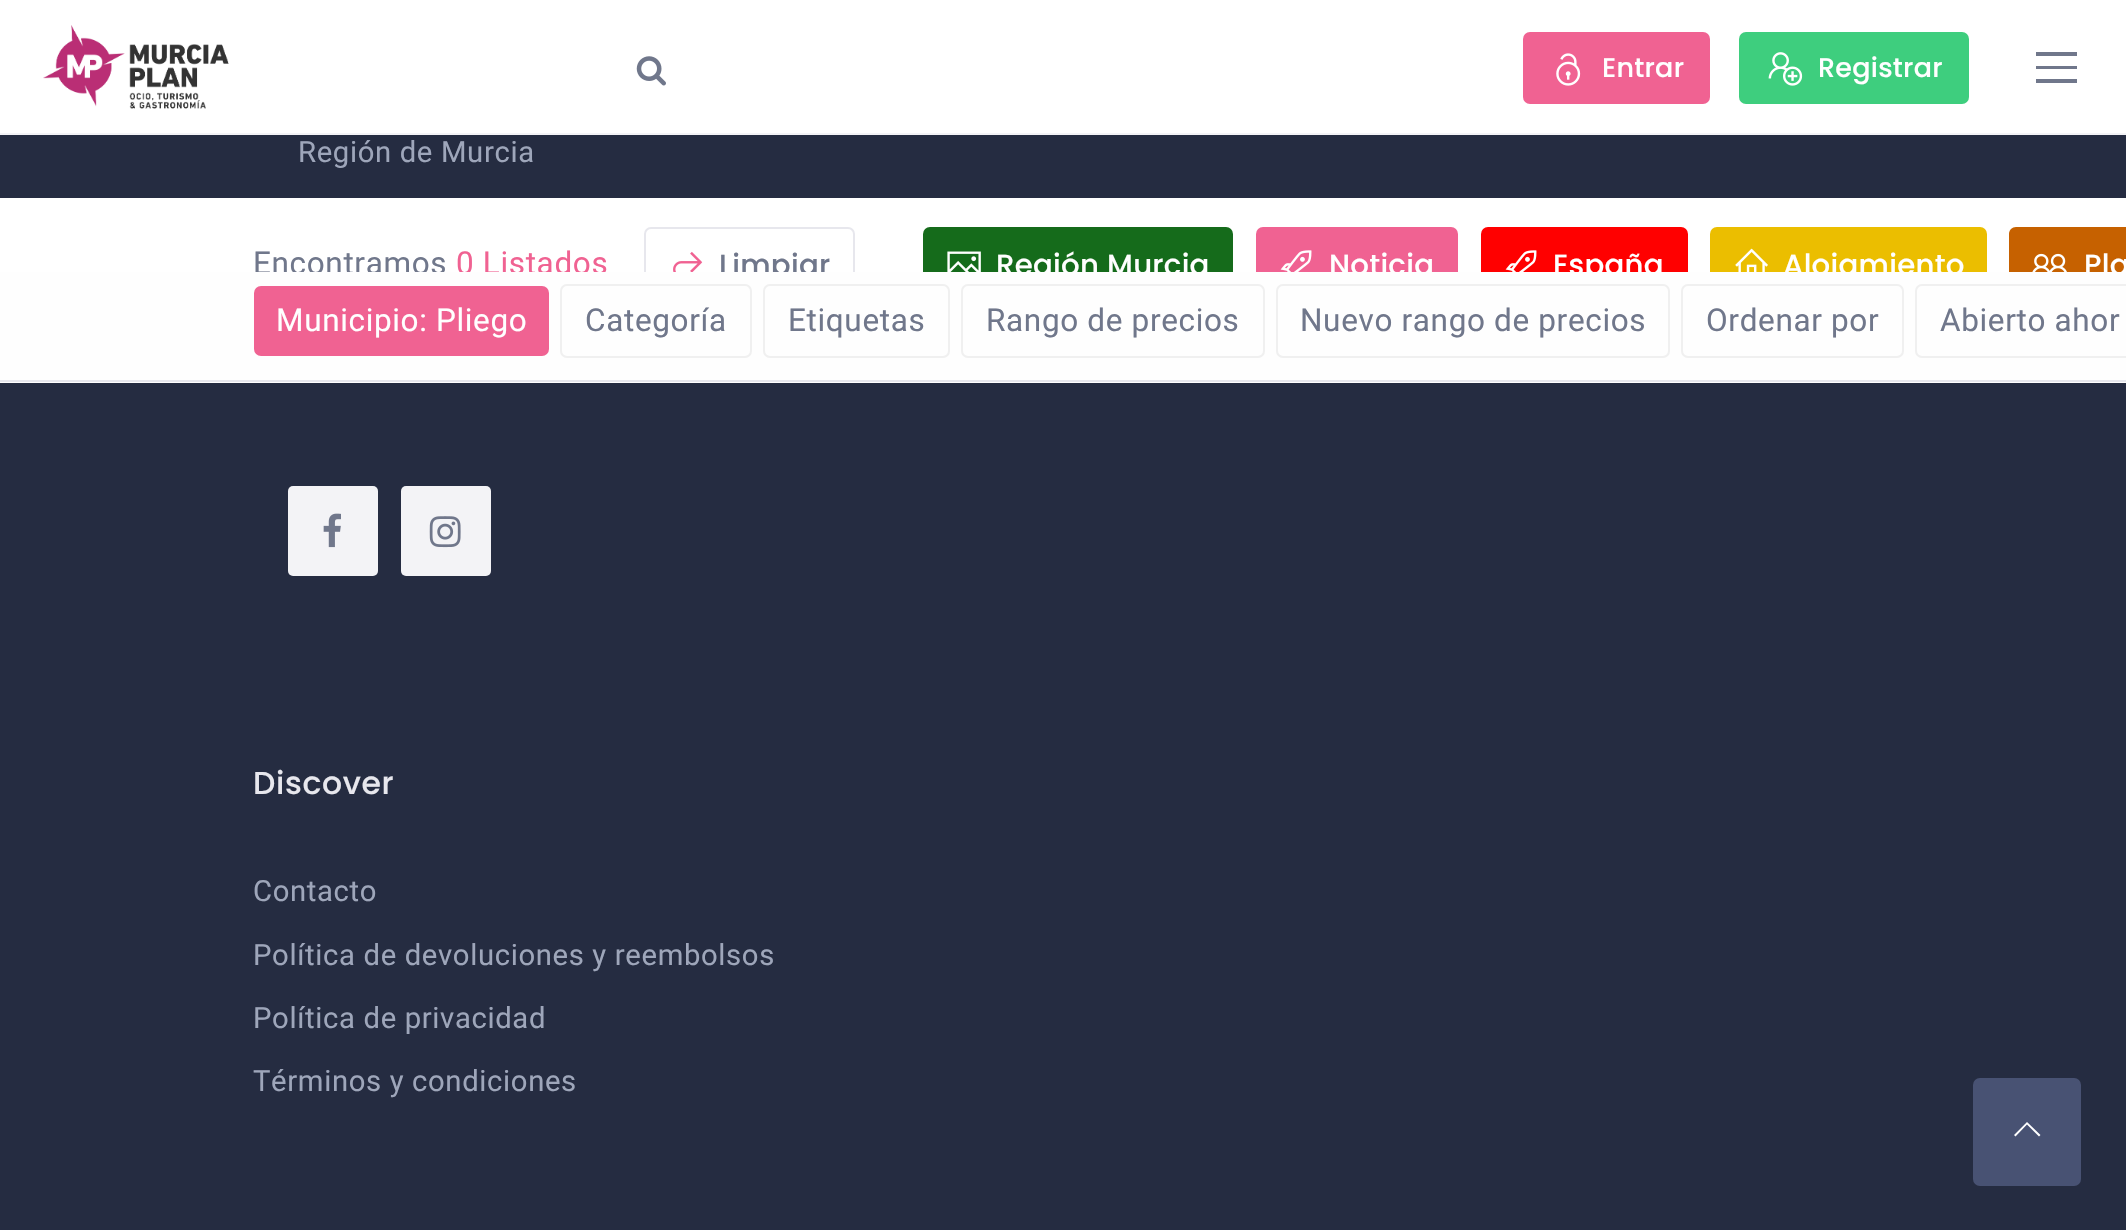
#include "include/core/SkBlurTypes.h"
#include "include/core/SkCanvas.h"
#include "include/core/SkData.h"
#include "include/core/SkFont.h"
#include "include/core/SkFontMgr.h"
#include "include/core/SkImage.h"
#include "include/core/SkMaskFilter.h"
#include "include/core/SkPaint.h"
#include "include/core/SkPathBuilder.h"
#include "include/core/SkTextBlob.h"
#include "include/effects/SkDashPathEffect.h"
#include "include/effects/SkGradientShader.h"
#include "include/utils/SkParsePath.h"

extern sk_sp<SkFontMgr> fontMgr;

static SkFont font(const char* family, int weight, float size, bool italic = false) {
    SkFontStyle style(weight, SkFontStyle::kNormal_Width,
        italic ? SkFontStyle::kItalic_Slant : SkFontStyle::kUpright_Slant);
    SkFont result(fontMgr->matchFamilyStyle(family, style), size);
    result.setSubpixel(true);
    return result;
}

static void drawTracked(SkCanvas* canvas, const char* s, float x, float y, const SkFont& font, const SkPaint& ink, float letter, float word) {
    std::vector<SkGlyphID> glyphs(font.countText(s, strlen(s), SkTextEncoding::kUTF8));
    std::vector<float> xs(glyphs.size());
    font.textToGlyphs(s, strlen(s), SkTextEncoding::kUTF8, glyphs);
    font.getXPos(glyphs, xs, x);
    float extra = 0;
    for (size_t i = 0; i < glyphs.size(); i++) {
        xs[i] += extra;
        extra += letter + word * (glyphs[i] == font.unicharToGlyph(' '));
    }
    canvas->drawTextBlob(SkTextBlob::MakeFromPosHGlyphs(glyphs, xs, y, font), 0, 0, ink);
}

static void fillRect(SkCanvas* canvas, float x, float y, float w, float h, SkColor color) {
    SkPaint ink(SkColor4f::FromColor(color));
    ink.setAntiAlias(true);
    canvas->drawRect(SkRect::MakeXYWH(x, y, w, h), ink);
}

static void fillRRect(SkCanvas* canvas, float x, float y, float w, float h, float radius, SkColor color) {
    SkPaint ink(SkColor4f::FromColor(color));
    ink.setAntiAlias(true);
    canvas->drawRoundRect(SkRect::MakeXYWH(x, y, w, h), radius, radius, ink);
}

static void drawPhoto(SkCanvas* canvas, const char* path, float x, float y, float w, float h) {
    auto image = SkImages::DeferredFromEncodedData(SkData::MakeFromFileName(path));
    canvas->drawImageRect(image, SkRect::MakeXYWH(x, y, w, h), SkSamplingOptions());
}

static SkPath parsePath(const char* data, bool evenOdd = false) {
    SkPath result = *SkParsePath::FromSVGString(data);
    if (evenOdd) result.setFillType(SkPathFillType::kEvenOdd);
    return result;
}

void draw(SkCanvas* canvas) {
    SkPaint paint;
    paint.setAntiAlias(true);
    canvas->clear(0xFF252C41);
    fillRect(canvas, 0, 0, 2126, 133, 0xFFFFFFFF);
    drawPhoto(canvas, "assets/img1.png", 43, 25, 186, 84);
    drawPhoto(canvas, "assets/img2.png", 636, 56, 30, 30);
    fillRRect(canvas, 1523, 32, 187, 72, 7, 0xFFF06292);
    drawPhoto(canvas, "assets/img3.png", 1556, 53, 25, 33);
    SkFont font1 = font("Poppins", 500, 27);
    paint.setColor(0xFFFFFFFF);
    drawTracked(canvas, "Entrar", 1602, 77, font1, paint, 0.25f, 0);
    fillRRect(canvas, 1739, 32, 230, 72, 7, 0xFF3ECE7E);
    drawPhoto(canvas, "assets/img4.png", 1768, 52, 35, 34);
    drawTracked(canvas, "Registrar", 1818, 77, font1, paint, 0.25f, 0);
    paint.setColor(0xFF70778B);
    canvas->drawPath(parsePath("M2036 52H2077V56H2036ZM2036 66H2077V69H2036ZM2036 79H2077V83H2036Z"), paint);
    fillRect(canvas, 0, 133, 2126, 2, 0xFFF3F3F6);
    SkFont font2 = font("Roboto", 400, 29.25f);
    paint.setColor(0xFF9EA6BA);
    drawTracked(canvas, "Región de Murcia", 298, 162, font2, paint, 0.65f, 0);
    fillRRect(canvas, 288, 486, 90, 90, 5, 0xFFF3F3F6);
    drawPhoto(canvas, "assets/img5.png", 323, 513, 18, 35);
    fillRRect(canvas, 401, 486, 90, 90, 5, 0xFFF3F3F6);
    drawPhoto(canvas, "assets/img6.png", 429, 516, 32, 32);
    SkFont font3 = font("Poppins", 500, 31.5f);
    paint.setColor(0xFFE7E7ED);
    drawTracked(canvas, "Discover", 253, 794, font3, paint, 0.65f, 0);
    paint.setColor(0xFF9EA6BA);
    drawTracked(canvas, "Contacto", 253, 901, font2, paint, 0.65f, 0);
    drawTracked(canvas, "Política de devoluciones y reembolsos", 253, 965, font2, paint, 0.65f, 0);
    drawTracked(canvas, "Política de privacidad", 253, 1028, font2, paint, 0.65f, 0);
    drawTracked(canvas, "Términos y condiciones", 253, 1091, font2, paint, 0.65f, 0);
    fillRect(canvas, 0, 198, 2126, 74, 0xFFFFFFFF);
    SkFont font4 = font("Roboto", 400, 31.5f);
    paint.setColor(0xFF70778B);
    drawTracked(canvas, "Encontramos", 253, 274, font4, paint, 0.65f, 0);
    paint.setColor(0xFFF06292);
    drawTracked(canvas, "0 Listados", 456, 274, font4, paint, 0.65f, 0);
    paint.setStroke(true);
    paint.setStrokeWidth(2);
    paint.setColor(0xFFE7E7ED);
    canvas->drawRoundRect(SkRect::MakeXYWH(645, 228, 209, 75), 6, 6, paint);
    drawPhoto(canvas, "assets/img7.png", 673, 251, 30, 21);
    SkFont font5 = font("Poppins", 500, 29.25f);
    paint.setStroke(false);
    paint.setColor(0xFF70778B);
    drawTracked(canvas, "Limpiar", 719, 275, font5, paint, 0.25f, 0);
    fillRRect(canvas, 923, 227, 310, 75, 7, 0xFF156B1B);
    drawPhoto(canvas, "assets/img8.png", 947, 251, 34, 21);
    paint.setColor(0xFFFFFFFF);
    drawTracked(canvas, "Región Murcia", 996, 275, font5, paint, 0.25f, 0);
    fillRRect(canvas, 1256, 227, 202, 75, 7, 0xFFF06292);
    drawPhoto(canvas, "assets/img9.png", 1280, 250, 32, 22);
    drawTracked(canvas, "Noticia", 1329, 275, font5, paint, 0.25f, 0);
    fillRRect(canvas, 1481, 227, 207, 75, 7, 0xFFFF0000);
    drawPhoto(canvas, "assets/img10.png", 1505, 250, 32, 22);
    drawTracked(canvas, "España", 1553, 275, font5, paint, 0.25f, 0);
    fillRRect(canvas, 1710, 227, 277, 75, 7, 0xFFEBBE00);
    drawPhoto(canvas, "assets/img11.png", 1735, 248, 33, 24);
    drawTracked(canvas, "Alojamiento", 1783, 275, font5, paint, 0.25f, 0);
    paint.setColor(0xFFC66100);
    canvas->drawPath(parsePath("M2016 227H2126V302H2016C2012 302 2009 299 2009 295V234C2009 230 2012 227 2016 227Z"), paint);
    drawPhoto(canvas, "assets/img12.png", 2032, 253, 35, 19);
    paint.setColor(0xFFFFFFFF);
    drawTracked(canvas, "Pla", 2084, 275, font5, paint, 0.25f, 0);
    fillRect(canvas, 0, 272, 2126, 111, 0xFFFEFEFE);
    fillRect(canvas, 0, 380, 2126, 2, 0xFFE7E7ED);
    fillRRect(canvas, 254, 286, 295, 70, 7, 0xFFF06292);
    drawTracked(canvas, "Municipio: Pliego", 276, 331, font4, paint, 0.65f, 0);
    paint.setStroke(true);
    paint.setColor(0xFFF0F0F0);
    canvas->drawRoundRect(SkRect::MakeXYWH(561, 285, 190, 72), 6, 6, paint);
    paint.setStroke(false);
    paint.setColor(0xFF70778B);
    drawTracked(canvas, "Categoría", 585, 331, font4, paint, 0.65f, 0);
    paint.setStroke(true);
    paint.setColor(0xFFF0F0F0);
    canvas->drawRoundRect(SkRect::MakeXYWH(764, 285, 185, 72), 6, 6, paint);
    paint.setStroke(false);
    paint.setColor(0xFF70778B);
    drawTracked(canvas, "Etiquetas", 788, 331, font4, paint, 0.65f, 0);
    paint.setStroke(true);
    paint.setColor(0xFFF0F0F0);
    canvas->drawRoundRect(SkRect::MakeXYWH(962, 285, 302, 72), 6, 6, paint);
    paint.setStroke(false);
    paint.setColor(0xFF70778B);
    drawTracked(canvas, "Rango de precios", 986, 331, font4, paint, 0.65f, 0);
    paint.setStroke(true);
    paint.setColor(0xFFF0F0F0);
    canvas->drawRoundRect(SkRect::MakeXYWH(1277, 285, 392, 72), 6, 6, paint);
    paint.setStroke(false);
    paint.setColor(0xFF70778B);
    drawTracked(canvas, "Nuevo rango de precios", 1300, 331, font4, paint, 0.65f, 0);
    paint.setStroke(true);
    paint.setColor(0xFFF0F0F0);
    canvas->drawRoundRect(SkRect::MakeXYWH(1682, 285, 221, 72), 6, 6, paint);
    paint.setStroke(false);
    paint.setColor(0xFF70778B);
    drawTracked(canvas, "Ordenar por", 1706, 331, font4, paint, 0.65f, 0);
    paint.setStroke(true);
    paint.setColor(0xFFF0F0F0);
    canvas->drawRoundRect(SkRect::MakeXYWH(1916, 285, 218, 72), 6, 6, paint);
    paint.setStroke(false);
    paint.setColor(0xFF70778B);
    drawTracked(canvas, "Abierto ahor", 1940, 331, font4, paint, 0.65f, 0);
    fillRRect(canvas, 1973, 1078, 108, 108, 7, 0xFF485273);
    paint.setColor(0xFFFFFFFF);
    canvas->drawPath(parsePath("M2027 1122L2040.5 1135L2039 1136.5L2027 1124.5L2015.5 1136.5L2014 1135Z"), paint);
}
